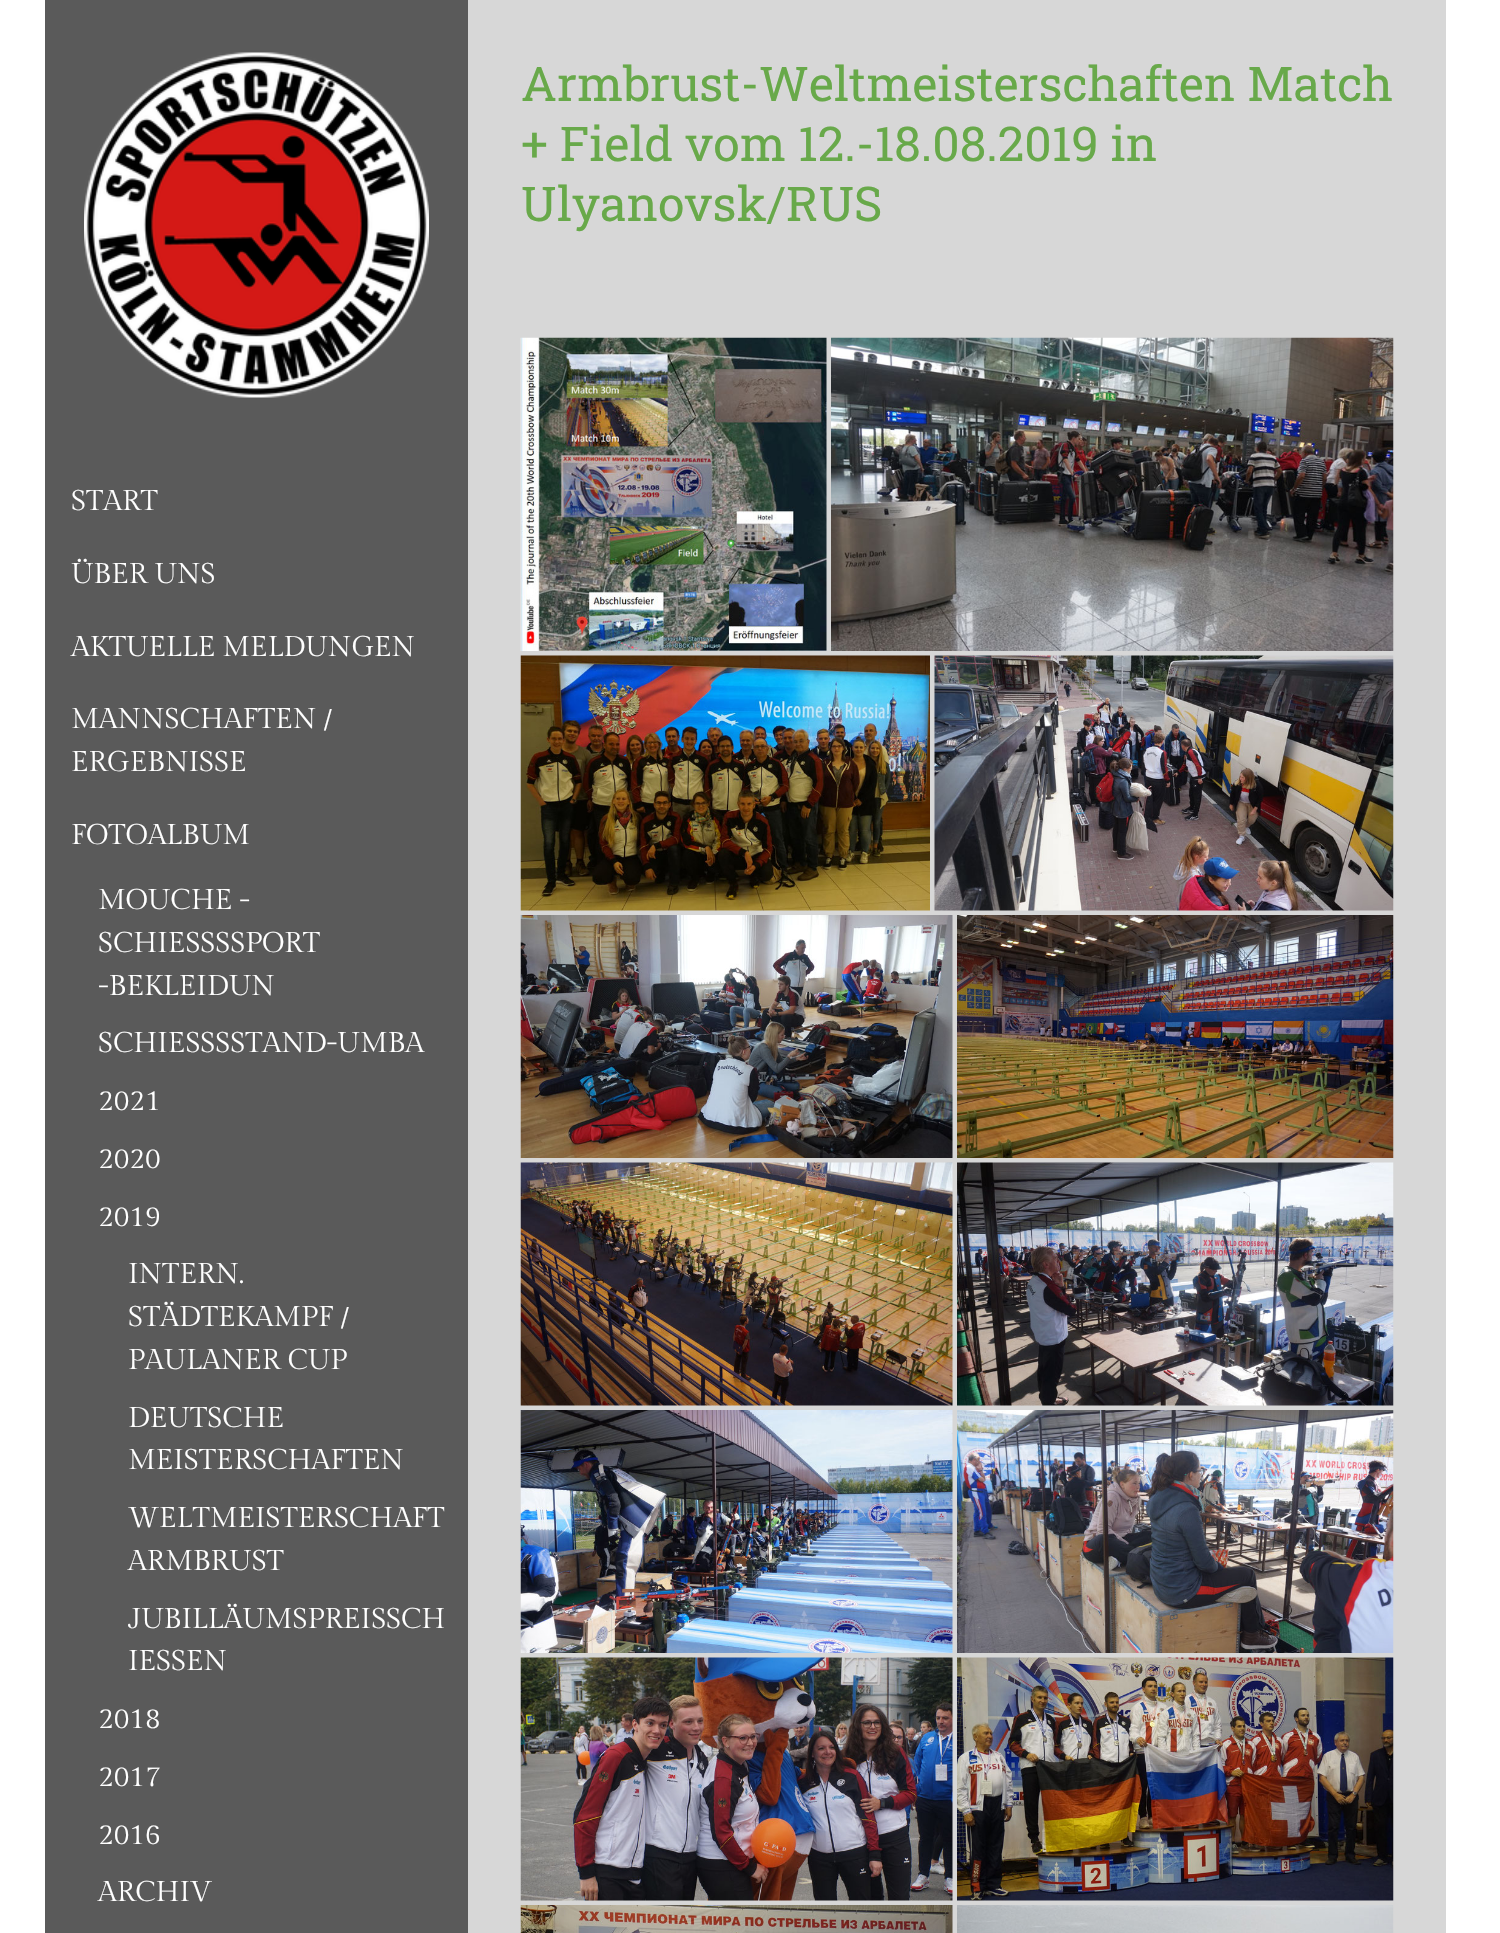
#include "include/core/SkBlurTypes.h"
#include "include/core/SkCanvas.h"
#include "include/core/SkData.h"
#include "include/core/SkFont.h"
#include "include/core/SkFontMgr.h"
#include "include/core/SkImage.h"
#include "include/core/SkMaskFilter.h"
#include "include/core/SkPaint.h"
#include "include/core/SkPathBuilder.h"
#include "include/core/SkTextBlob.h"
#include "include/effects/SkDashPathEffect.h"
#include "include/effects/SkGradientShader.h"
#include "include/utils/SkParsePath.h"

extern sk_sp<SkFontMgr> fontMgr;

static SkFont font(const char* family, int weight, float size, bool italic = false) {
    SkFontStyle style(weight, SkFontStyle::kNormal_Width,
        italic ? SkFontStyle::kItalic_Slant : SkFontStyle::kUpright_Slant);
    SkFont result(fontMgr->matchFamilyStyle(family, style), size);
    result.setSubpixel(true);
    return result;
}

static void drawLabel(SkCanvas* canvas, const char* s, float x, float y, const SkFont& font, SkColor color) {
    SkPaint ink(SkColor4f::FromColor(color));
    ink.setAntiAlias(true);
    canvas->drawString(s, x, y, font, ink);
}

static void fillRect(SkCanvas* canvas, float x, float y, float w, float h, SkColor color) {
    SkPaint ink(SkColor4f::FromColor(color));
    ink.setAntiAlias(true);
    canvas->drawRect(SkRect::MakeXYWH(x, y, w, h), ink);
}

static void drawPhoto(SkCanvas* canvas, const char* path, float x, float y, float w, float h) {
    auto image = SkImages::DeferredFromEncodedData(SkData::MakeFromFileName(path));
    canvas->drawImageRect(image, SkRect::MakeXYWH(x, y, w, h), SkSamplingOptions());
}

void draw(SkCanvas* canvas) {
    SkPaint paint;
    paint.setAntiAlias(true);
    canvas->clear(0xFFFFFFFF);
    fillRect(canvas, 468, 0, 978, 1933, 0xFFD7D7D7);
    SkFont font1 = font("Roboto Slab", 400, 48);
    drawLabel(canvas, "Armbrust-Weltmeisterschaften Match", 521, 101, font1, 0xFF68A94A);
    drawLabel(canvas, "+ Field vom 12.-18.08.2019 in", 521, 161, font1, 0xFF68A94A);
    drawLabel(canvas, "Ulyanovsk/RUS", 521, 221, font1, 0xFF68A94A);
    drawPhoto(canvas, "assets/img1.png", 520, 337, 307, 314);
    drawPhoto(canvas, "assets/img2.png", 831, 337, 563, 314);
    drawPhoto(canvas, "assets/img3.png", 520, 655, 410, 256);
    drawPhoto(canvas, "assets/img4.png", 934, 655, 460, 256);
    drawPhoto(canvas, "assets/img5.png", 520, 915, 433, 243);
    drawPhoto(canvas, "assets/img6.png", 957, 915, 437, 243);
    drawPhoto(canvas, "assets/img7.png", 520, 1162, 433, 244);
    drawPhoto(canvas, "assets/img8.png", 957, 1162, 437, 244);
    drawPhoto(canvas, "assets/img9.png", 520, 1410, 433, 243);
    drawPhoto(canvas, "assets/img10.png", 957, 1410, 437, 243);
    drawPhoto(canvas, "assets/img11.png", 520, 1657, 433, 244);
    drawPhoto(canvas, "assets/img12.png", 957, 1657, 437, 244);
    drawPhoto(canvas, "assets/img13.png", 520, 1905, 433, 28);
    drawPhoto(canvas, "assets/img14.png", 957, 1905, 437, 28);
    fillRect(canvas, 45, 0, 423, 1933, 0xFF5A5A5A);
    drawPhoto(canvas, "assets/img15.png", 84, 52, 345, 346);
    SkFont font2 = font("Gilda Display", 400, 28.5f);
    drawLabel(canvas, "START", 71, 510, font2, 0xFFFFFFFF);
    drawLabel(canvas, "ÜBER UNS", 71, 583, font2, 0xFFFFFFFF);
    drawLabel(canvas, "AKTUELLE MELDUNGEN", 71, 656, font2, 0xFFFFFFFF);
    drawLabel(canvas, "MANNSCHAFTEN /", 71, 728, font2, 0xFFFFFFFF);
    drawLabel(canvas, "ERGEBNISSE", 71, 771, font2, 0xFFFFFFFF);
    drawLabel(canvas, "FOTOALBUM", 71, 844, font2, 0xFFFFFFFF);
    drawLabel(canvas, "MOUCHE -", 98, 909, font2, 0xFFFFFFFF);
    drawLabel(canvas, "SCHIESSSSPORT", 98, 952, font2, 0xFFFFFFFF);
    drawLabel(canvas, "-BEKLEIDUN", 98, 995, font2, 0xFFFFFFFF);
    drawLabel(canvas, "SCHIESSSSTAND-UMBA", 98, 1052, font2, 0xFFFFFFFF);
    drawLabel(canvas, "2021", 98, 1110, font2, 0xFFFFFFFF);
    drawLabel(canvas, "2020", 98, 1168, font2, 0xFFFFFFFF);
    drawLabel(canvas, "2019", 98, 1226, font2, 0xFFFFFFFF);
    drawLabel(canvas, "INTERN.", 128, 1283, font2, 0xFFFFFFFF);
    drawLabel(canvas, "STÄDTEKAMPF /", 128, 1326, font2, 0xFFFFFFFF);
    drawLabel(canvas, "PAULANER CUP", 128, 1369, font2, 0xFFFFFFFF);
    drawLabel(canvas, "DEUTSCHE", 128, 1427, font2, 0xFFFFFFFF);
    drawLabel(canvas, "MEISTERSCHAFTEN", 128, 1469, font2, 0xFFFFFFFF);
    drawLabel(canvas, "WELTMEISTERSCHAFT", 128, 1527, font2, 0xFFFFFFFF);
    drawLabel(canvas, "ARMBRUST", 128, 1570, font2, 0xFFFFFFFF);
    drawLabel(canvas, "JUBILLÄUMSPREISSCH", 128, 1628, font2, 0xFFFFFFFF);
    drawLabel(canvas, "IESSEN", 128, 1670, font2, 0xFFFFFFFF);
    drawLabel(canvas, "2018", 98, 1728, font2, 0xFFFFFFFF);
    drawLabel(canvas, "2017", 98, 1786, font2, 0xFFFFFFFF);
    drawLabel(canvas, "2016", 98, 1844, font2, 0xFFFFFFFF);
    drawLabel(canvas, "ARCHIV", 98, 1901, font2, 0xFFFFFFFF);
}
